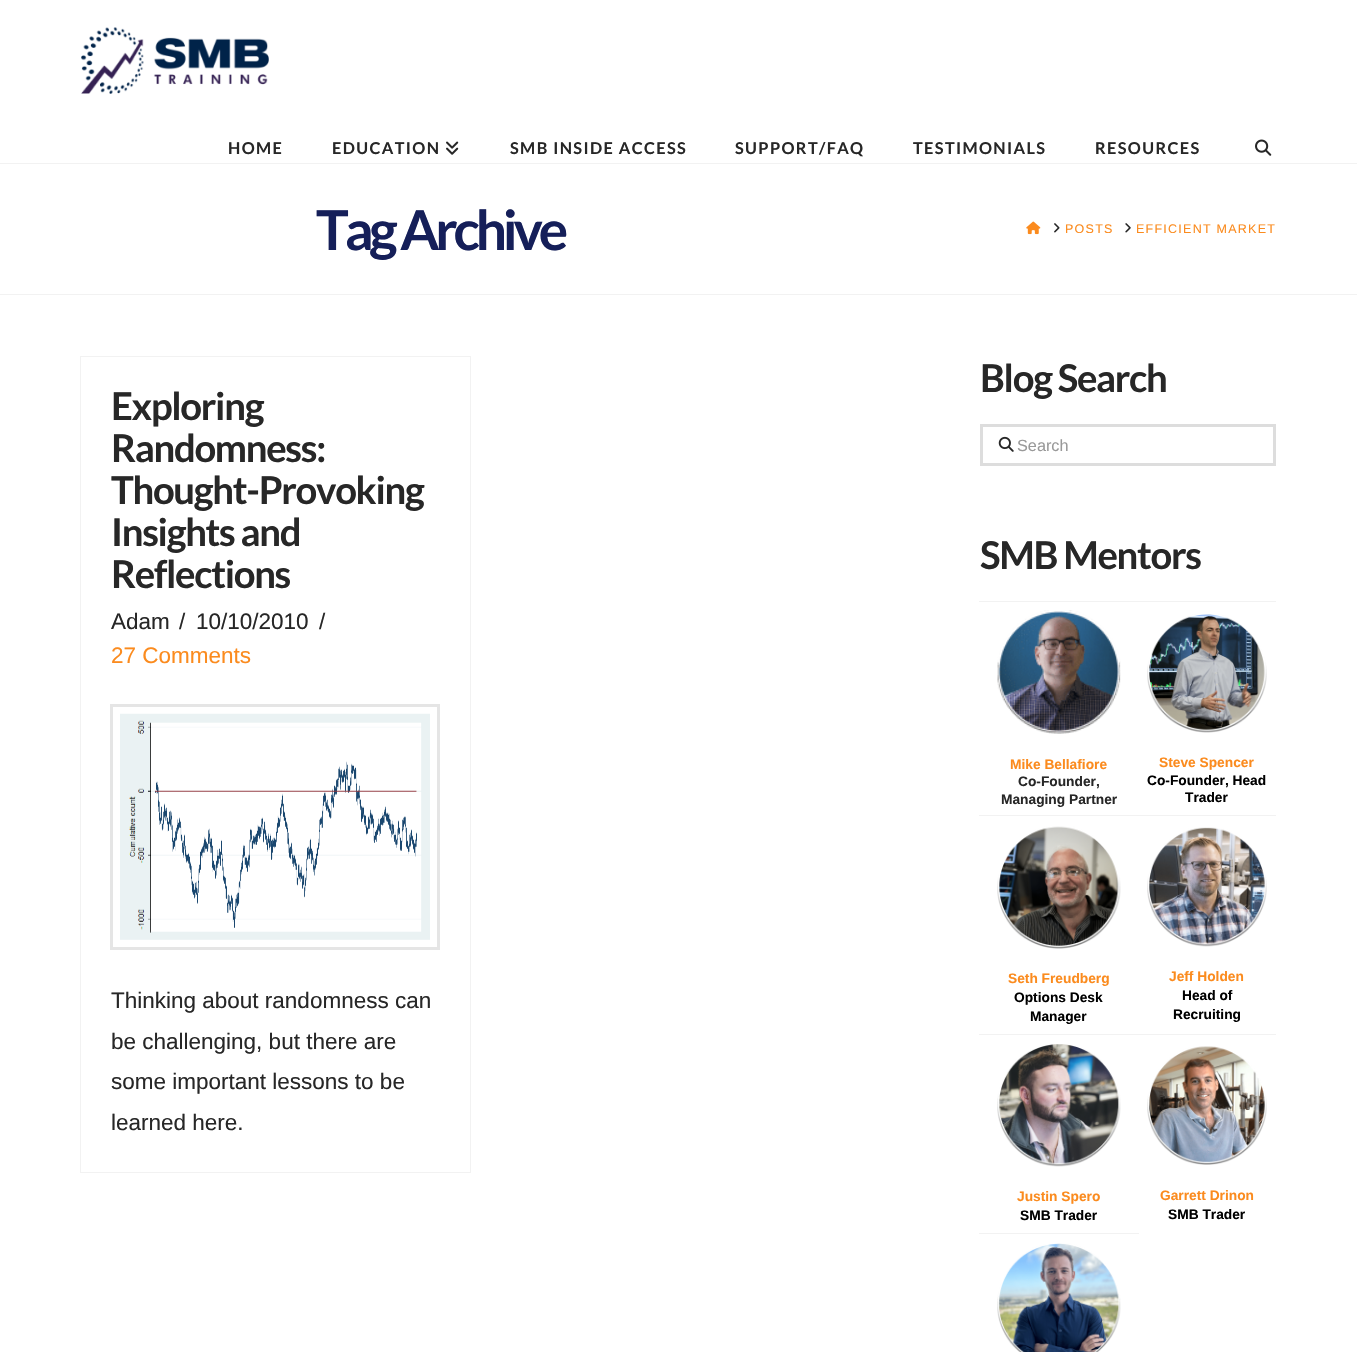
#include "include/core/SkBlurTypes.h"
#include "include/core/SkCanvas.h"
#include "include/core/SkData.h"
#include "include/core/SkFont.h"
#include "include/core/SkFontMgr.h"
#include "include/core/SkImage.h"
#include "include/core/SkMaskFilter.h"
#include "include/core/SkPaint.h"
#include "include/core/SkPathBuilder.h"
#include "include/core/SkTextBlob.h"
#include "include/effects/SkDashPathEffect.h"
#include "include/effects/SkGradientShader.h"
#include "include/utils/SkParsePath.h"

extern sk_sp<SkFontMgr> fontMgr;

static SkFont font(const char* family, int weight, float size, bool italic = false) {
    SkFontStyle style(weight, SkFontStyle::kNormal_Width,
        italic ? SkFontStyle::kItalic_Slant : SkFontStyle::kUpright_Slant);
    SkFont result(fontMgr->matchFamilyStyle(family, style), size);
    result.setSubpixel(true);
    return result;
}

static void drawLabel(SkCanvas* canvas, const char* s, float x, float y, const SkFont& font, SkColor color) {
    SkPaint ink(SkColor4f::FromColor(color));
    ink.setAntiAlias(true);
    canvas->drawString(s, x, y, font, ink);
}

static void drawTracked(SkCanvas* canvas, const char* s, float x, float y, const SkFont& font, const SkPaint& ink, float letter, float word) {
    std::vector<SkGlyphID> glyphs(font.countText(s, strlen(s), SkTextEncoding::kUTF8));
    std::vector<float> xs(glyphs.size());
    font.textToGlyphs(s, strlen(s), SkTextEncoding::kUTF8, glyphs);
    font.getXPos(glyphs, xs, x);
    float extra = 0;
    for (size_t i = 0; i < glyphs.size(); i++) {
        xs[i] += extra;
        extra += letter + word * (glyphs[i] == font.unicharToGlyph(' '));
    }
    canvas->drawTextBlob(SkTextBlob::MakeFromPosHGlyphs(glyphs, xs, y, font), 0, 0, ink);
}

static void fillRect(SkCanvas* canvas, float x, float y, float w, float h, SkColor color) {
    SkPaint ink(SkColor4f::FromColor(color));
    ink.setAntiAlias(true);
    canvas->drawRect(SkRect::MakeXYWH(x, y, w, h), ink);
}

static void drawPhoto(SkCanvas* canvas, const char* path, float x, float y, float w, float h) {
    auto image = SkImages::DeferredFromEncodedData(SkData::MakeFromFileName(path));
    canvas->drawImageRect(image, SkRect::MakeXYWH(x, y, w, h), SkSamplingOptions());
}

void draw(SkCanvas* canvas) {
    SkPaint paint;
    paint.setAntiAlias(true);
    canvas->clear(0xFFFFFFFF);
    drawPhoto(canvas, "assets/img1.png", 81, 27, 188, 67);
    SkFont font1 = font("Lato", 700, 16.25f);
    paint.setColor(0xFF272727);
    drawTracked(canvas, "HOME", 228, 154, font1, paint, 1.4f, 0);
    drawTracked(canvas, "EDUCATION", 332, 154, font1, paint, 1.4f, 0);
    drawPhoto(canvas, "assets/img2.png", 446, 141, 13, 14);
    drawTracked(canvas, "SMB INSIDE ACCESS", 510, 154, font1, paint, 1.4f, 0);
    drawTracked(canvas, "SUPPORT/FAQ", 735, 154, font1, paint, 1.4f, 0);
    drawTracked(canvas, "TESTIMONIALS", 913, 154, font1, paint, 1.4f, 0);
    drawTracked(canvas, "RESOURCES", 1095, 154, font1, paint, 1.4f, 0);
    drawPhoto(canvas, "assets/img3.png", 1255, 139, 17, 17);
    fillRect(canvas, 0, 163, 1357, 1, 0xFFF2F2F2);
    fillRect(canvas, 0, 294, 1357, 1, 0xFFF2F2F2);
    SkFont font2 = font("Lato", 700, 55);
    paint.setColor(0xFF151F59);
    drawTracked(canvas, "Tag Archive", 316, 250, font2, paint, -4.1f, 0);
    drawPhoto(canvas, "assets/img4.png", 1026, 221, 15, 14);
    drawPhoto(canvas, "assets/img5.png", 1054, 223, 6, 10);
    SkFont font3 = font("Liberation Sans", 400, 12.5f);
    paint.setColor(0xFFFB8B1E);
    drawTracked(canvas, "POSTS", 1065, 233, font3, paint, 1.25f, 0);
    drawPhoto(canvas, "assets/img6.png", 1125, 223, 6, 10);
    drawTracked(canvas, "EFFICIENT MARKET", 1136, 233, font3, paint, 1.25f, 0);
    paint.setStroke(true);
    paint.setStrokeWidth(1);
    paint.setColor(0xFFF2F2F2);
    canvas->drawRect(SkRect::MakeXYWH(80.5f, 356.5f, 390, 816), paint);
    SkFont font4 = font("Lato", 700, 38.25f);
    paint.setStroke(false);
    paint.setColor(0xFF272727);
    drawTracked(canvas, "Exploring", 111, 420, font4, paint, -1.3f, 0);
    drawTracked(canvas, "Randomness:", 111, 462, font4, paint, -1.3f, 0);
    drawTracked(canvas, "Thought-Provoking", 111, 504, font4, paint, -1.3f, 0);
    drawTracked(canvas, "Insights and", 111, 546, font4, paint, -1.3f, 0);
    drawTracked(canvas, "Reflections", 111, 588, font4, paint, -1.3f, 0);
    SkFont font5 = font("Liberation Sans", 400, 22.5f);
    drawLabel(canvas, "Adam", 111, 629, font5, 0xFF272727);
    drawLabel(canvas, "/", 179, 629, font5, 0xFF272727);
    drawLabel(canvas, "10/10/2010", 196, 629, font5, 0xFF272727);
    drawLabel(canvas, "/", 319, 629, font5, 0xFF272727);
    drawLabel(canvas, "27 Comments", 111, 663, font5, 0xFFFB8B1E);
    paint.setStroke(true);
    paint.setStrokeWidth(3);
    paint.setColor(0xFFE5E5E5);
    canvas->drawRect(SkRect::MakeXYWH(111.5f, 705.5f, 327, 243), paint);
    drawPhoto(canvas, "assets/img7.png", 120, 713, 310, 227);
    drawLabel(canvas, "Thinking about randomness can", 111, 1008, font5, 0xFF272727);
    drawLabel(canvas, "be challenging, but there are", 111, 1049, font5, 0xFF272727);
    drawLabel(canvas, "some important lessons to be", 111, 1089, font5, 0xFF272727);
    drawLabel(canvas, "learned here.", 111, 1130, font5, 0xFF272727);
    paint.setStroke(false);
    paint.setColor(0xFF272727);
    drawTracked(canvas, "Blog Search", 980, 392, font4, paint, -1.3f, 0);
    paint.setStroke(true);
    paint.setColor(0xFFDDDDDD);
    canvas->drawRect(SkRect::MakeXYWH(981.5f, 425.5f, 293, 39), paint);
    drawPhoto(canvas, "assets/img8.png", 998, 436, 16, 16);
    SkFont font6 = font("Liberation Sans", 400, 16.25f);
    drawLabel(canvas, "Search", 1017, 451, font6, 0xFF999999);
    paint.setStroke(false);
    paint.setColor(0xFF272727);
    drawTracked(canvas, "SMB Mentors", 980, 569, font4, paint, -1.3f, 0);
    drawPhoto(canvas, "assets/img9.png", 997, 610, 124, 124);
    SkFont font7 = font("Liberation Sans", 700, 13.75f);
    drawLabel(canvas, "Mike Bellafiore", 1010, 769, font7, 0xFFFB8B1E);
    drawLabel(canvas, "Co-Founder,", 1018, 786, font7, 0xFF272727);
    drawLabel(canvas, "Managing Partner", 1001, 804, font7, 0xFF272727);
    fillRect(canvas, 979, 601, 297, 1, 0xFFF2F2F2);
    drawPhoto(canvas, "assets/img10.png", 1147, 614, 120, 119);
    drawLabel(canvas, "Steve Spencer", 1159, 767, font7, 0xFFFB8B1E);
    drawLabel(canvas, "Co-Founder, Head", 1147, 785, font7, 0xFF000000);
    drawLabel(canvas, "Trader", 1185, 802, font7, 0xFF000000);
    drawPhoto(canvas, "assets/img11.png", 997, 826, 124, 123);
    drawLabel(canvas, "Seth Freudberg", 1008, 983, font7, 0xFFFB8B1E);
    drawLabel(canvas, "Options Desk", 1014, 1002, font7, 0xFF000000);
    drawLabel(canvas, "Manager", 1030, 1021, font7, 0xFF000000);
    fillRect(canvas, 979, 815, 297, 1, 0xFFF2F2F2);
    drawPhoto(canvas, "assets/img12.png", 1147, 827, 120, 120);
    drawLabel(canvas, "Jeff Holden", 1169, 981, font7, 0xFFFB8B1E);
    drawLabel(canvas, "Head of", 1182, 1000, font7, 0xFF000000);
    drawLabel(canvas, "Recruiting", 1173, 1019, font7, 0xFF000000);
    drawPhoto(canvas, "assets/img13.png", 997, 1044, 124, 123);
    drawLabel(canvas, "Justin Spero", 1017, 1201, font7, 0xFFFB8B1E);
    drawLabel(canvas, "SMB Trader", 1020, 1220, font7, 0xFF000000);
    fillRect(canvas, 979, 1034, 297, 1, 0xFFF2F2F2);
    drawPhoto(canvas, "assets/img14.png", 1147, 1046, 120, 119);
    drawLabel(canvas, "Garrett Drinon", 1160, 1200, font7, 0xFFFB8B1E);
    drawLabel(canvas, "SMB Trader", 1168, 1219, font7, 0xFF000000);
    fillRect(canvas, 979, 1233, 160, 1, 0xFFF2F2F2);
    drawPhoto(canvas, "assets/img15.png", 997, 1243, 124, 109);
}
